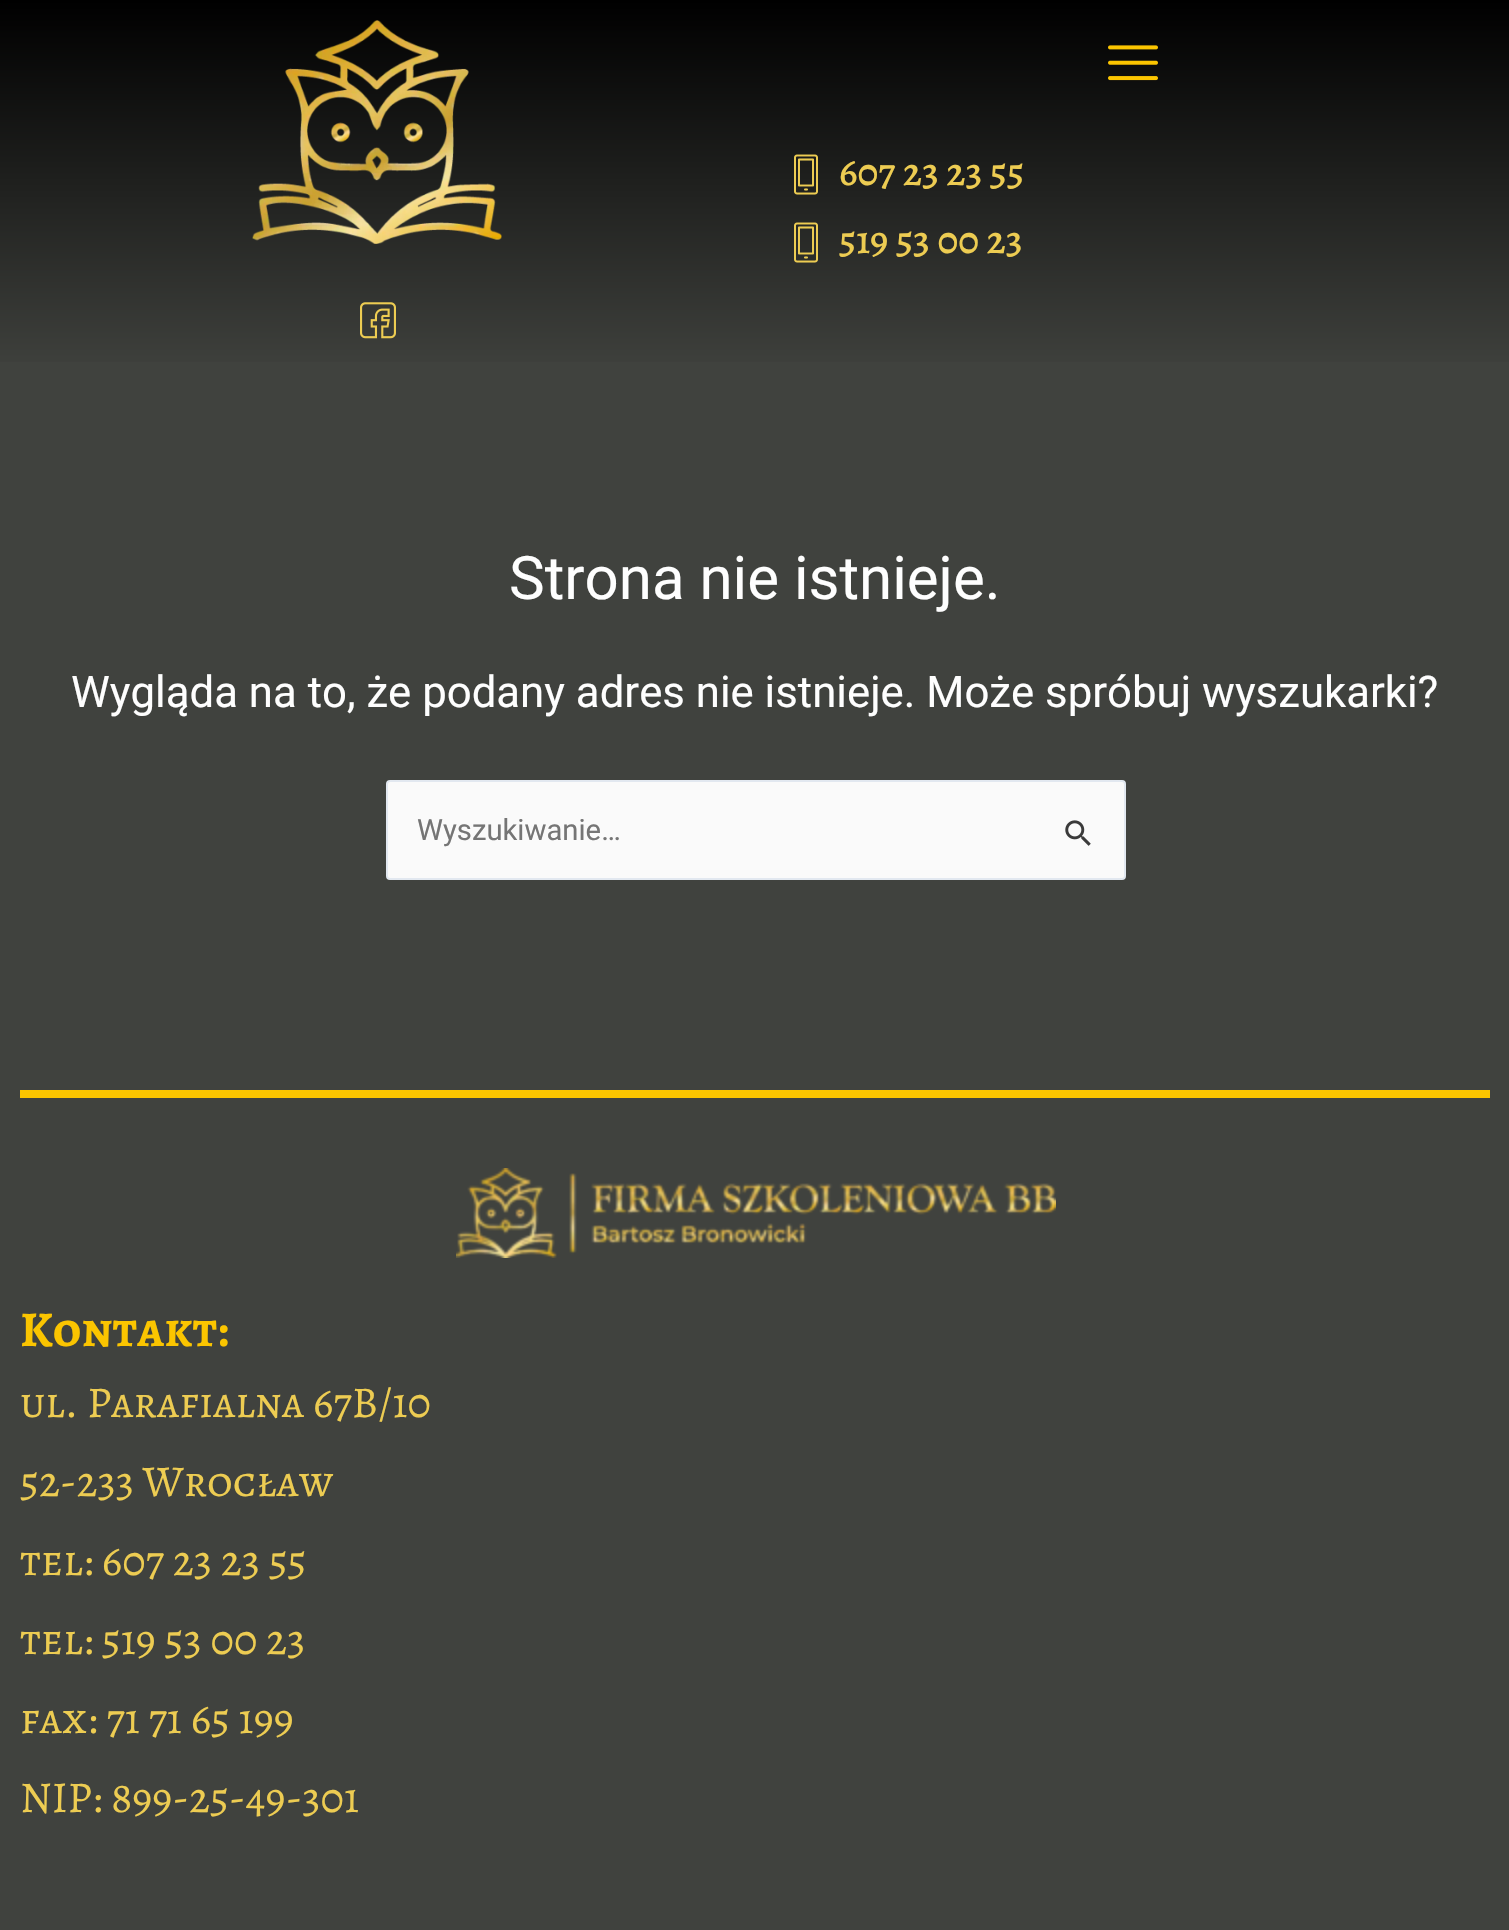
#include "include/core/SkBlurTypes.h"
#include "include/core/SkCanvas.h"
#include "include/core/SkData.h"
#include "include/core/SkFont.h"
#include "include/core/SkFontMgr.h"
#include "include/core/SkImage.h"
#include "include/core/SkMaskFilter.h"
#include "include/core/SkPaint.h"
#include "include/core/SkPathBuilder.h"
#include "include/core/SkTextBlob.h"
#include "include/effects/SkDashPathEffect.h"
#include "include/effects/SkGradientShader.h"
#include "include/utils/SkParsePath.h"

extern sk_sp<SkFontMgr> fontMgr;

static SkFont font(const char* family, int weight, float size, bool italic = false) {
    SkFontStyle style(weight, SkFontStyle::kNormal_Width,
        italic ? SkFontStyle::kItalic_Slant : SkFontStyle::kUpright_Slant);
    SkFont result(fontMgr->matchFamilyStyle(family, style), size);
    result.setSubpixel(true);
    return result;
}

static void drawLabel(SkCanvas* canvas, const char* s, float x, float y, const SkFont& font, SkColor color) {
    SkPaint ink(SkColor4f::FromColor(color));
    ink.setAntiAlias(true);
    canvas->drawString(s, x, y, font, ink);
}

static void fillRect(SkCanvas* canvas, float x, float y, float w, float h, SkColor color) {
    SkPaint ink(SkColor4f::FromColor(color));
    ink.setAntiAlias(true);
    canvas->drawRect(SkRect::MakeXYWH(x, y, w, h), ink);
}

static void drawPhoto(SkCanvas* canvas, const char* path, float x, float y, float w, float h) {
    auto image = SkImages::DeferredFromEncodedData(SkData::MakeFromFileName(path));
    canvas->drawImageRect(image, SkRect::MakeXYWH(x, y, w, h), SkSamplingOptions());
}

void draw(SkCanvas* canvas) {
    SkPaint paint;
    paint.setAntiAlias(true);
    canvas->clear(0xFF40423E);
    {
        const SkColor colors[] = {0xFF40423E, 0xFF000000};
        const float stops[] = {0, 1};
        const SkPoint ends[] = {{755, 376}, {755, 0}};
        paint.setShader(SkGradientShader::MakeLinear(ends, colors, stops, 2, SkTileMode::kClamp));
        paint.setAlpha(255);
    }
    canvas->drawRect(SkRect::MakeXYWH(0, 0, 1509, 362), paint);
    drawPhoto(canvas, "assets/img1.png", 252, 20, 250, 224);
    drawPhoto(canvas, "assets/img2.png", 360, 302, 36, 37);
    drawPhoto(canvas, "assets/img3.png", 1108, 45, 50, 36);
    drawPhoto(canvas, "assets/img4.png", 794, 154, 24, 41);
    SkFont font1 = font("Alegreya SC", 500, 40);
    drawLabel(canvas, "607 23 23 55", 839, 185, font1, 0xFFEDCC52);
    drawPhoto(canvas, "assets/img5.png", 794, 222, 24, 41);
    drawLabel(canvas, "519 53 00 23", 839, 253, font1, 0xFFEDCC52);
    SkFont font2 = font("Roboto", 400, 60);
    drawLabel(canvas, "Strona nie istnieje.", 509, 599, font2, 0xFFFEFEFE);
    SkFont font3 = font("Roboto", 400, 43.75f);
    drawLabel(canvas, "Wygląda na to, że podany adres nie istnieje. Może spróbuj wyszukarki?", 71, 707, font3, 0xFFFEFEFE);
    paint.setShader(nullptr);
    paint.setColor(0xFFFAFAFA);
    canvas->drawRoundRect(SkRect::MakeXYWH(387, 781, 738, 98), 3, 3, paint);
    paint.setStroke(true);
    paint.setStrokeWidth(2);
    paint.setColor(0xFFE2E8F0);
    canvas->drawRoundRect(SkRect::MakeXYWH(387, 781, 738, 98), 3, 3, paint);
    SkFont font4 = font("Roboto", 400, 29.25f);
    drawLabel(canvas, "Wyszukiwanie…", 417, 840, font4, 0xFF757575);
    drawPhoto(canvas, "assets/img6.png", 1065, 820, 26, 26);
    fillRect(canvas, 20, 1090, 1470, 8, 0xFFFBC500);
    drawPhoto(canvas, "assets/img7.png", 456, 1168, 600, 90);
    SkFont font5 = font("Alegreya SC", 700, 50);
    drawLabel(canvas, "Kontakt:", 20, 1346, font5, 0xFFFBC500);
    SkFont font6 = font("Alegreya SC", 400, 44);
    drawLabel(canvas, "ul. Parafialna 67B/10", 20, 1417, font6, 0xFFEDCC52);
    drawLabel(canvas, "52-233 Wrocław", 20, 1496, font6, 0xFFEDCC52);
    drawLabel(canvas, "tel: 607 23 23 55", 20, 1575, font6, 0xFFEDCC52);
    drawLabel(canvas, "tel: 519 53 00 23", 20, 1654, font6, 0xFFEDCC52);
    drawLabel(canvas, "fax: 71 71 65 199", 20, 1733, font6, 0xFFEDCC52);
    drawLabel(canvas, "NIP: 899-25-49-301", 20, 1812, font6, 0xFFEDCC52);
}
